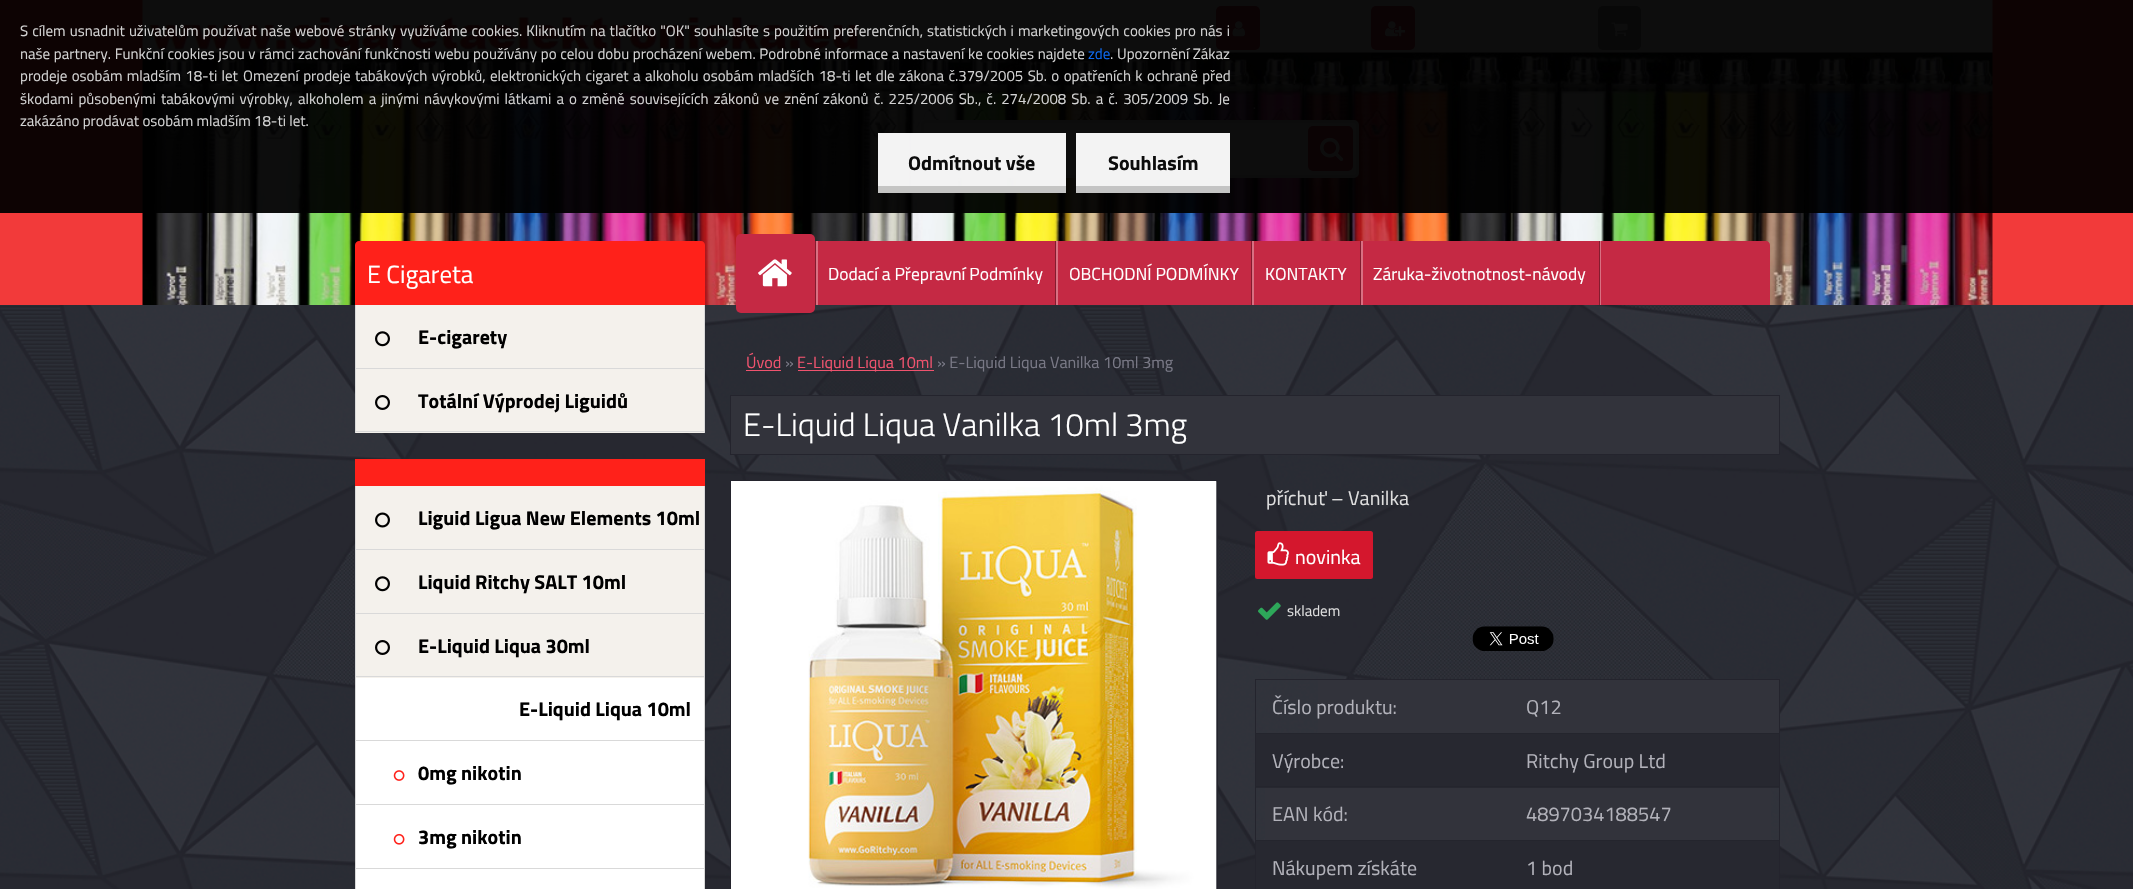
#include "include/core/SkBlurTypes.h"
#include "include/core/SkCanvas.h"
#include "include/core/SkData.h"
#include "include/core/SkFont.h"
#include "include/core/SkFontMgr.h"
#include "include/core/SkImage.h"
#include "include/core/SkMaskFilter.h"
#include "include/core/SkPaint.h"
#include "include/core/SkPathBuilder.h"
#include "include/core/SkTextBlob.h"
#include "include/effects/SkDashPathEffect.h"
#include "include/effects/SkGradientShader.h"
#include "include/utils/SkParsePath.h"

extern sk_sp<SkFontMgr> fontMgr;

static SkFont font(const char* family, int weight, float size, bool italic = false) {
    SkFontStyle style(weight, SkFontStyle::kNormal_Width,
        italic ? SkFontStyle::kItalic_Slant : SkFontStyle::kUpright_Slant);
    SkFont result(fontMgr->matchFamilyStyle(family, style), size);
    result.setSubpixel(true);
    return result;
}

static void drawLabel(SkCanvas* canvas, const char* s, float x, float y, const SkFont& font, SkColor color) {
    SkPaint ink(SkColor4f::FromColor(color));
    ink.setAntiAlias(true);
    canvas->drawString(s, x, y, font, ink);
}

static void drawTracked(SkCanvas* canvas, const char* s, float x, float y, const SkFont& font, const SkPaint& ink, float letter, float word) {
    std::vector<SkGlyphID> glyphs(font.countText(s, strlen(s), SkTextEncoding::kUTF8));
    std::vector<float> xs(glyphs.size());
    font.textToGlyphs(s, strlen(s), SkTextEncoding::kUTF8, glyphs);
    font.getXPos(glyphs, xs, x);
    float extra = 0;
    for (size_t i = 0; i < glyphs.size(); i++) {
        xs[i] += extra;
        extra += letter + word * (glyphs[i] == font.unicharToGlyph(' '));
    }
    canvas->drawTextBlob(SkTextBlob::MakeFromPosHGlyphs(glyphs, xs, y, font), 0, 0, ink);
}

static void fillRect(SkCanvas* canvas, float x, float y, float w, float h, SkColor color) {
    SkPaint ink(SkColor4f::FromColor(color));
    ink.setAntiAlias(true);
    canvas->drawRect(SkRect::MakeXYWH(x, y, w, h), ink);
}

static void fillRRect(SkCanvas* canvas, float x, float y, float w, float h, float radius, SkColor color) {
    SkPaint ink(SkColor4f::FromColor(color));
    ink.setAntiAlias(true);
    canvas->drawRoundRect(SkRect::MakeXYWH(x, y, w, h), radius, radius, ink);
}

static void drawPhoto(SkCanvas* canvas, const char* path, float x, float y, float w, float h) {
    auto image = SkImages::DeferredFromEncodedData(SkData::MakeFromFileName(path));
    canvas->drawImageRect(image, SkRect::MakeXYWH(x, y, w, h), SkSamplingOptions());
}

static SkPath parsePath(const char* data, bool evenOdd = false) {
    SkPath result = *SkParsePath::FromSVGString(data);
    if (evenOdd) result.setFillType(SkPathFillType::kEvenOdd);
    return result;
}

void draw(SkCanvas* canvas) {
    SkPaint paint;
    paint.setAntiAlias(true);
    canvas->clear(0xFFFFFFFF);
    fillRect(canvas, 0, 0, 2133, 305, 0xFFF23A3A);
    drawPhoto(canvas, "assets/img1.png", 142, 0, 1851, 305);
    paint.setColor(0xFFFFFFFF);
    canvas->drawRoundRect(SkRect::MakeXYWH(922.5f, 121.5f, 435, 55), 3.5f, 3.5f, paint);
    paint.setStroke(true);
    paint.setStrokeWidth(3);
    paint.setColor(0xFFE4E4E4);
    canvas->drawRoundRect(SkRect::MakeXYWH(922.5f, 121.5f, 435, 55), 3.5f, 3.5f, paint);
    fillRRect(canvas, 1308, 126, 45, 45, 5, 0xFFC52944);
    drawPhoto(canvas, "assets/img2.png", 1320, 137, 24, 25);
    fillRRect(canvas, 1216, 6, 44, 44, 5, 0xFFC52944);
    drawPhoto(canvas, "assets/img4.png", 1232, 21, 13, 16);
    fillRRect(canvas, 1371, 6, 44, 44, 5, 0xFFC52944);
    drawPhoto(canvas, "assets/img5.png", 1385, 21, 20, 16);
    fillRRect(canvas, 1598, 6, 43, 44, 5, 0xFF8C8C8C);
    drawPhoto(canvas, "assets/img6.png", 1611, 22, 17, 15);
    fillRect(canvas, 0, 0, 2133, 213, 0xF2000000);
    SkFont font1 = font("Titillium Web", 400, 15);
    paint.setStroke(false);
    paint.setColor(0xFFD3D3D3);
    drawTracked(canvas, "S cílem usnadnit uživatelům používat naše webové stránky využíváme cookies. Kliknutím na tlačítko \"OK\" souhlasíte s použitím preferenčních, statistických i marketingových cookies pro nás i", 20, 36, font1, paint, 0, 0.8f);
    drawTracked(canvas, "naše partnery. Funkční cookies jsou v rámci zachování funkčnosti webu používány po celou dobu procházení webem. Podrobné informace a nastavení ke cookies najdete", 20, 59, font1, paint, 0, 0.4f);
    drawLabel(canvas, "zde", 1088, 59, font1, 0xFF0D69F1);
    drawLabel(canvas, ".", 1110, 59, font1, 0xFFD3D3D3);
    drawLabel(canvas, "Upozornění Zákaz", 1117, 59, font1, 0xFFD3D3D3);
    drawTracked(canvas, "prodeje osobám mladším 18-ti let", 20, 81, font1, paint, 0, 1);
    drawTracked(canvas, "Omezení prodeje tabákových výrobků, elektronických cigaret a alkoholu osobám mladších 18-ti let dle zákona č.379/2005 Sb. o opatřeních k ochraně před", 243, 81, font1, paint, 0, 1.1f);
    drawTracked(canvas, "škodami působenými tabákovými výrobky, alkoholem a jinými návykovými látkami a o změně souvisejících zákonů ve znění zákonů č. 225/2006 Sb., č. 274/2008 Sb. a č. 305/2009 Sb.", 20, 104, font1, paint, 0, 1.8f);
    drawLabel(canvas, "Je", 1218, 104, font1, 0xFFD3D3D3);
    drawLabel(canvas, "zakázáno prodávat osobám mladším 18-ti let.", 20, 126, font1, 0xFFD3D3D3);
    fillRect(canvas, 878, 133, 188, 53, 0xF2FFFFFF);
    fillRect(canvas, 878, 186, 188, 7, 0xFFC5C5C4);
    SkFont font2 = font("Titillium Web", 700, 20);
    drawLabel(canvas, "Odmítnout vše", 908, 170, font2, 0xFF0C0C0C);
    fillRect(canvas, 1076, 133, 154, 53, 0xF2FFFFFF);
    fillRect(canvas, 1076, 186, 154, 7, 0xFFC4C4C4);
    drawLabel(canvas, "Souhlasím", 1108, 170, font2, 0xFF0C0C0C);
    drawPhoto(canvas, "assets/img3.png", 0, 305, 2133, 584);
    paint.setColor(0xFFC52944);
    canvas->drawPath(parsePath("M743 241H1766C1768 241 1770 243 1770 245V305H739V245C739 243 741 241 743 241Z"), paint);
    paint.setColor(0xFFD87082);
    canvas->drawPath(parsePath("M759 241H816V305H818V241Z"), paint);
    fillRect(canvas, 815, 241, 1, 64, 0xFF841B2E);
    fillRRect(canvas, 736, 234, 79, 79, 5, 0xFFC52944);
    drawPhoto(canvas, "assets/img7.png", 758, 259, 34, 28);
    canvas->drawPath(parsePath("M818 241H1056V305H1058V241Z"), paint);
    fillRect(canvas, 1055, 241, 1, 64, 0xFF841B2E);
    SkFont font3 = font("Titillium Web", 400, 17.5f);
    drawLabel(canvas, "Dodací a Přepravní Podmínky", 828, 280, font3, 0xFFFFFFFF);
    canvas->drawPath(parsePath("M1058 241H1252V305H1254V241Z"), paint);
    fillRect(canvas, 1251, 241, 1, 64, 0xFF841B2E);
    drawLabel(canvas, "OBCHODNÍ PODMÍNKY", 1069, 280, font3, 0xFFFFFFFF);
    canvas->drawPath(parsePath("M1254 241H1361V305H1363V241Z"), paint);
    fillRect(canvas, 1360, 241, 1, 64, 0xFF841B2E);
    drawLabel(canvas, "KONTAKTY", 1265, 280, font3, 0xFFFFFFFF);
    canvas->drawPath(parsePath("M1363 241H1600V305H1601V241Z"), paint);
    fillRect(canvas, 1599, 241, 1, 64, 0xFF841B2E);
    drawLabel(canvas, "Záruka-životnotnost-návody", 1373, 280, font3, 0xFFFFFFFF);
    paint.setColor(0xFFFF211A);
    canvas->drawPath(parsePath("M359 241H701C703 241 705 243 705 245V305H355V245C355 243 357 241 359 241Z"), paint);
    SkFont font4 = font("Titillium Web", 400, 25);
    drawLabel(canvas, "E Cigareta", 367, 283, font4, 0xFFFFFFFF);
    fillRect(canvas, 356, 305, 348, 63, 0xFFF4F1EC);
    fillRect(canvas, 704, 305, 1, 128, 0xFFD9D9D9);
    fillRect(canvas, 355, 368, 350, 1, 0xFFD9D9D9);
    fillRect(canvas, 355, 305, 1, 64, 0xFFD9D9D9);
    drawPhoto(canvas, "assets/img8.png", 375, 331, 15, 16);
    drawLabel(canvas, "E-cigarety", 418, 344, font2, 0xFF000000);
    fillRect(canvas, 356, 369, 348, 64, 0xFFF4F1EC);
    fillRect(canvas, 355, 431, 350, 1, 0xFFD9D9D9);
    fillRect(canvas, 355, 369, 1, 64, 0xFFD9D9D9);
    drawPhoto(canvas, "assets/img9.png", 375, 395, 15, 15);
    drawLabel(canvas, "Totální Výprodej Liguidů", 418, 408, font2, 0xFF000000);
    fillRect(canvas, 355, 459, 350, 27, 0xFFFF211A);
    fillRect(canvas, 356, 486, 348, 63, 0xFFF4F1EC);
    fillRect(canvas, 704, 486, 1, 403, 0xFFD9D9D9);
    fillRect(canvas, 355, 549, 350, 1, 0xFFD9D9D9);
    fillRect(canvas, 355, 486, 1, 64, 0xFFD9D9D9);
    drawPhoto(canvas, "assets/img10.png", 375, 512, 15, 16);
    drawLabel(canvas, "Liguid Ligua New Elements 10ml", 418, 525, font2, 0xFF000000);
    fillRect(canvas, 356, 550, 348, 63, 0xFFF4F1EC);
    fillRect(canvas, 355, 613, 350, 1, 0xFFD9D9D9);
    fillRect(canvas, 355, 550, 1, 64, 0xFFD9D9D9);
    drawPhoto(canvas, "assets/img8.png", 375, 576, 15, 16);
    drawLabel(canvas, "Liquid Ritchy SALT 10ml", 418, 589, font2, 0xFF000000);
    fillRect(canvas, 356, 614, 348, 64, 0xFFF4F1EC);
    fillRect(canvas, 355, 676, 350, 1, 0xFFD9D9D9);
    fillRect(canvas, 355, 614, 1, 64, 0xFFD9D9D9);
    drawPhoto(canvas, "assets/img9.png", 375, 640, 15, 15);
    drawLabel(canvas, "E-Liquid Liqua 30ml", 418, 653, font2, 0xFF000000);
    fillRect(canvas, 356, 678, 348, 62, 0xFFFFFFFF);
    fillRect(canvas, 355, 740, 350, 1, 0xFFD9D9D9);
    fillRect(canvas, 355, 678, 1, 63, 0xFFD9D9D9);
    drawLabel(canvas, "E-Liquid Liqua 10ml", 519, 716, font2, 0xFF000000);
    fillRect(canvas, 356, 741, 348, 63, 0xFFFFFFFF);
    fillRect(canvas, 355, 804, 350, 1, 0xFFD9D9D9);
    fillRect(canvas, 355, 741, 1, 64, 0xFFD9D9D9);
    drawPhoto(canvas, "assets/img11.png", 393, 770, 12, 11);
    drawLabel(canvas, "0mg nikotin", 418, 780, font2, 0xFF000000);
    fillRect(canvas, 356, 805, 348, 63, 0xFFFFFFFF);
    fillRect(canvas, 355, 868, 350, 1, 0xFFD9D9D9);
    fillRect(canvas, 355, 805, 1, 84, 0xFFD9D9D9);
    drawPhoto(canvas, "assets/img12.png", 393, 833, 12, 12);
    drawLabel(canvas, "3mg nikotin", 418, 844, font2, 0xFF000000);
    fillRect(canvas, 356, 869, 348, 20, 0xFFFFFFFF);
    SkFont font5 = font("Titillium Web", 400, 16.25f);
    drawLabel(canvas, "Úvod", 746, 368, font5, 0xFFEF536E);
    fillRect(canvas, 746, 370, 35, 1, 0xFFEF536E);
    drawLabel(canvas, "»", 785, 368, font5, 0xFF797986);
    fillRect(canvas, 798, 370, 136, 1, 0xFFEF536E);
    drawLabel(canvas, "E-Liquid Liqua 10ml", 797, 368, font5, 0xFFEF536E);
    drawLabel(canvas, "» E-Liquid Liqua Vanilka 10ml 3mg", 937, 368, font5, 0xFF797986);
    paint.setColor(0xFF32333B);
    canvas->drawRect(SkRect::MakeXYWH(730.5f, 395.5f, 1049, 59), paint);
    paint.setStroke(true);
    paint.setStrokeWidth(1);
    paint.setColor(0xFF24242D);
    canvas->drawRect(SkRect::MakeXYWH(730.5f, 395.5f, 1049, 59), paint);
    SkFont font6 = font("Titillium Web", 300, 32.5f);
    drawLabel(canvas, "E-Liquid Liqua Vanilka 10ml 3mg", 743, 436, font6, 0xFFFFFFFF);
    fillRect(canvas, 1216, 481, 1, 408, 0xFF32333B);
    canvas->drawRect(SkRect::MakeXYWH(730.5f, 480.5f, 487, 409), paint);
    fillRect(canvas, 731, 481, 485, 408, 0xFFFFFFFF);
    drawPhoto(canvas, "assets/img13.png", 808, 481, 409, 408);
    SkFont font7 = font("Titillium Web", 400, 20);
    drawLabel(canvas, "příchuť – Vanilka", 1266, 505, font7, 0xFFDEDEDE);
    fillRRect(canvas, 1255, 531, 118, 48, 2.5f, 0xFFD4172D);
    drawPhoto(canvas, "assets/img14.png", 1267, 542, 22, 24);
    drawLabel(canvas, "novinka", 1295, 564, font7, 0xFFFFFFFF);
    drawPhoto(canvas, "assets/img15.png", 1258, 602, 23, 18);
    drawLabel(canvas, "skladem", 1287, 616, font1, 0xFFDEDEDE);
    drawPhoto(canvas, "assets/img16.png", 1472, 626, 82, 25);
    fillRect(canvas, 1255, 679, 525, 1, 0xFF24242D);
    fillRect(canvas, 1779, 679, 1, 210, 0xFF24242D);
    fillRect(canvas, 1255, 679, 1, 210, 0xFF24242D);
    fillRect(canvas, 1318, 680, 461, 53, 0xFF32333B);
    drawLabel(canvas, "Číslo produktu:", 1272, 714, font7, 0xFFB2B2BA);
    drawLabel(canvas, "Q12", 1526, 714, font7, 0xFFB2B2BA);
    fillRect(canvas, 1255, 733, 525, 1, 0xFF24252D);
    fillRect(canvas, 1256, 734, 523, 54, 0xFF272830);
    drawLabel(canvas, "Výrobce:", 1272, 768, font7, 0xFFB2B2BA);
    drawLabel(canvas, "Ritchy Group Ltd", 1526, 768, font7, 0xFFB2B2BA);
    fillRect(canvas, 1265, 788, 506, 52, 0xFF32333B);
    fillRect(canvas, 1255, 786, 525, 1, 0xFF24252D);
    drawLabel(canvas, "EAN kód:", 1272, 821, font7, 0xFFB2B2BA);
    drawLabel(canvas, "4897034188547", 1526, 821, font7, 0xFFB2B2BA);
    fillRect(canvas, 1255, 840, 525, 1, 0xFF24252D);
    fillRect(canvas, 1256, 841, 523, 48, 0xFF272830);
    drawLabel(canvas, "Nákupem získáte", 1272, 875, font7, 0xFFB2B2BA);
    drawLabel(canvas, "1 bod", 1526, 875, font7, 0xFFB2B2BA);
}
